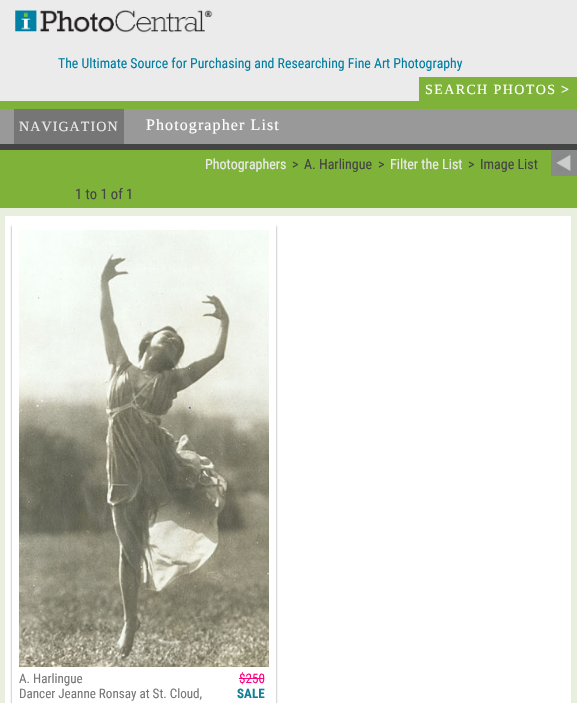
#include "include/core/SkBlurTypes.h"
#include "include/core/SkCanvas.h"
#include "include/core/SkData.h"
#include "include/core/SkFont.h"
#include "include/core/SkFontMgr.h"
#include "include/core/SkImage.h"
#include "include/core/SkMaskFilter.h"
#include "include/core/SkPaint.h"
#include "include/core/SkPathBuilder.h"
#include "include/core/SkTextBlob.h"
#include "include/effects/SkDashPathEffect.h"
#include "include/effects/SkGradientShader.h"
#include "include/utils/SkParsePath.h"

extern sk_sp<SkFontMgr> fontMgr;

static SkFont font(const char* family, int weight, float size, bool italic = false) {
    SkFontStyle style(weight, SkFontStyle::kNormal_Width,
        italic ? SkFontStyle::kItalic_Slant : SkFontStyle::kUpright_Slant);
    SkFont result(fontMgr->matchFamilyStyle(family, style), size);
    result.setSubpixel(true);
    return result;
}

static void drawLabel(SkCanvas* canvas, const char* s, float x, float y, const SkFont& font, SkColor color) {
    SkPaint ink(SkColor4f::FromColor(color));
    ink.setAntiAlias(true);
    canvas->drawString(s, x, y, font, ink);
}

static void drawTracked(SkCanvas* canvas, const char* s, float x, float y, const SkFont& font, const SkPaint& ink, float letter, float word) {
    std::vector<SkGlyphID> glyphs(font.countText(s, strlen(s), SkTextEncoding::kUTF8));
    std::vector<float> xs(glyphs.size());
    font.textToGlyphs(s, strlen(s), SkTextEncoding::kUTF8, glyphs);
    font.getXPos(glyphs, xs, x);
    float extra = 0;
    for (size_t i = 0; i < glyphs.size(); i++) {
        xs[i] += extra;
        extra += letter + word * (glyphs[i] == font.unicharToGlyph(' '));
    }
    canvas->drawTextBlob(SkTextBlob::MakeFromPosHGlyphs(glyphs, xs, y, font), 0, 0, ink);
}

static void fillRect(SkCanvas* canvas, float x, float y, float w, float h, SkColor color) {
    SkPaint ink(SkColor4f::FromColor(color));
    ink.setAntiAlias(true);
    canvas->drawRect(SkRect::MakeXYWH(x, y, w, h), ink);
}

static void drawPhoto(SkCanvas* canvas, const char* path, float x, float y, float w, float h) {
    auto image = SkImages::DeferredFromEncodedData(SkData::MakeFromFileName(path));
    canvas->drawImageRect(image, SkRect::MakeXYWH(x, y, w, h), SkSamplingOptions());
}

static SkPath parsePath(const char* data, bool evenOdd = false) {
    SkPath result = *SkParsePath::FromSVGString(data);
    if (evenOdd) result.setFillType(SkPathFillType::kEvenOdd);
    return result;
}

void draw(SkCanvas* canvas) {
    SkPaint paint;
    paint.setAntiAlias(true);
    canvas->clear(0xFFEBEBEB);
    fillRect(canvas, 0, 101, 577, 8, 0xFF7EB239);
    drawPhoto(canvas, "assets/img1.png", 15, 10, 198, 23);
    SkFont font1 = font("Roboto Condensed", 400, 13.8f);
    drawLabel(canvas, "The Ultimate Source for Purchasing and Researching Fine Art Photography", 58, 68, font1, 0xFF027EA2);
    fillRect(canvas, 419, 77, 158, 24, 0xFF7EB239);
    SkFont font2 = font("Liberation Serif", 400, 14);
    paint.setColor(0xFFFFFFFF);
    drawTracked(canvas, "SEARCH PHOTOS", 425, 94, font2, paint, 1.4f, 0);
    SkFont font3 = font("Liberation Serif", 700, 14);
    drawTracked(canvas, ">", 561, 94, font3, paint, 1.4f, 0);
    fillRect(canvas, 0, 109, 577, 35, 0xFF999999);
    fillRect(canvas, 0, 144, 577, 6, 0xFF444444);
    fillRect(canvas, 14, 109, 110, 35, 0xFF767676);
    paint.setColor(0xFFEBEBEB);
    drawTracked(canvas, "NAVIGATION", 19, 131, font2, paint, 1.1f, 0);
    SkFont font4 = font("Liberation Serif", 400, 16);
    paint.setColor(0xFFFFFFFF);
    drawTracked(canvas, "Photographer List", 146, 130, font4, paint, 1.1f, 0);
    fillRect(canvas, 0, 150, 577, 58, 0xFF7EB239);
    SkFont font5 = font("Roboto Condensed", 400, 14);
    drawLabel(canvas, "Photographers", 205, 169, font5, 0xFFEBEBEB);
    drawLabel(canvas, ">", 292, 169, font5, 0xFF444444);
    drawLabel(canvas, "A. Harlingue", 304, 169, font5, 0xFF444444);
    drawLabel(canvas, ">", 378, 169, font5, 0xFF444444);
    drawLabel(canvas, "Filter the List", 390, 169, font5, 0xFFEBEBEB);
    drawLabel(canvas, ">", 468, 169, font5, 0xFF444444);
    drawLabel(canvas, "Image List", 480, 169, font5, 0xFF444444);
    fillRect(canvas, 551, 150, 26, 26, 0xFF898A8A);
    drawPhoto(canvas, "assets/img2.png", 556, 154, 15, 17);
    SkFont font6 = font("Roboto Condensed", 400, 14.5f);
    drawLabel(canvas, "1 to 1 of 1", 75, 199, font6, 0xFF444444);
    fillRect(canvas, 0, 208, 577, 495, 0xFFE9EFDE);
    fillRect(canvas, 5, 216, 566, 487, 0xFFFFFFFF);
    canvas->save();
    canvas->clipPath(parsePath("M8 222H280V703H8ZM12 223H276V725H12Z", true), true);
    paint.setColor(0xFF888888);
    paint.setMaskFilter(SkMaskFilter::MakeBlur(kNormal_SkBlurStyle, 1));
    canvas->drawRect(SkRect::MakeXYWH(12, 226, 264, 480), paint);
    paint.setMaskFilter(nullptr);
    canvas->restore();
    drawPhoto(canvas, "assets/img3.png", 19, 230, 250, 437);
    SkFont font7 = font("Roboto Condensed", 400, 13.1f);
    drawLabel(canvas, "A. Harlingue", 19, 683, font7, 0xFF777777);
    drawLabel(canvas, "Dancer Jeanne Ronsay at St. Cloud,", 19, 698, font7, 0xFF777777);
    drawLabel(canvas, "$250", 239, 683, font7, 0xFFFF0080);
    fillRect(canvas, 239, 678, 25, 1, 0xFFFF0080);
    SkFont font8 = font("Roboto Condensed", 700, 13.1f);
    drawLabel(canvas, "SALE", 237, 698, font8, 0xFF127E97);
}
